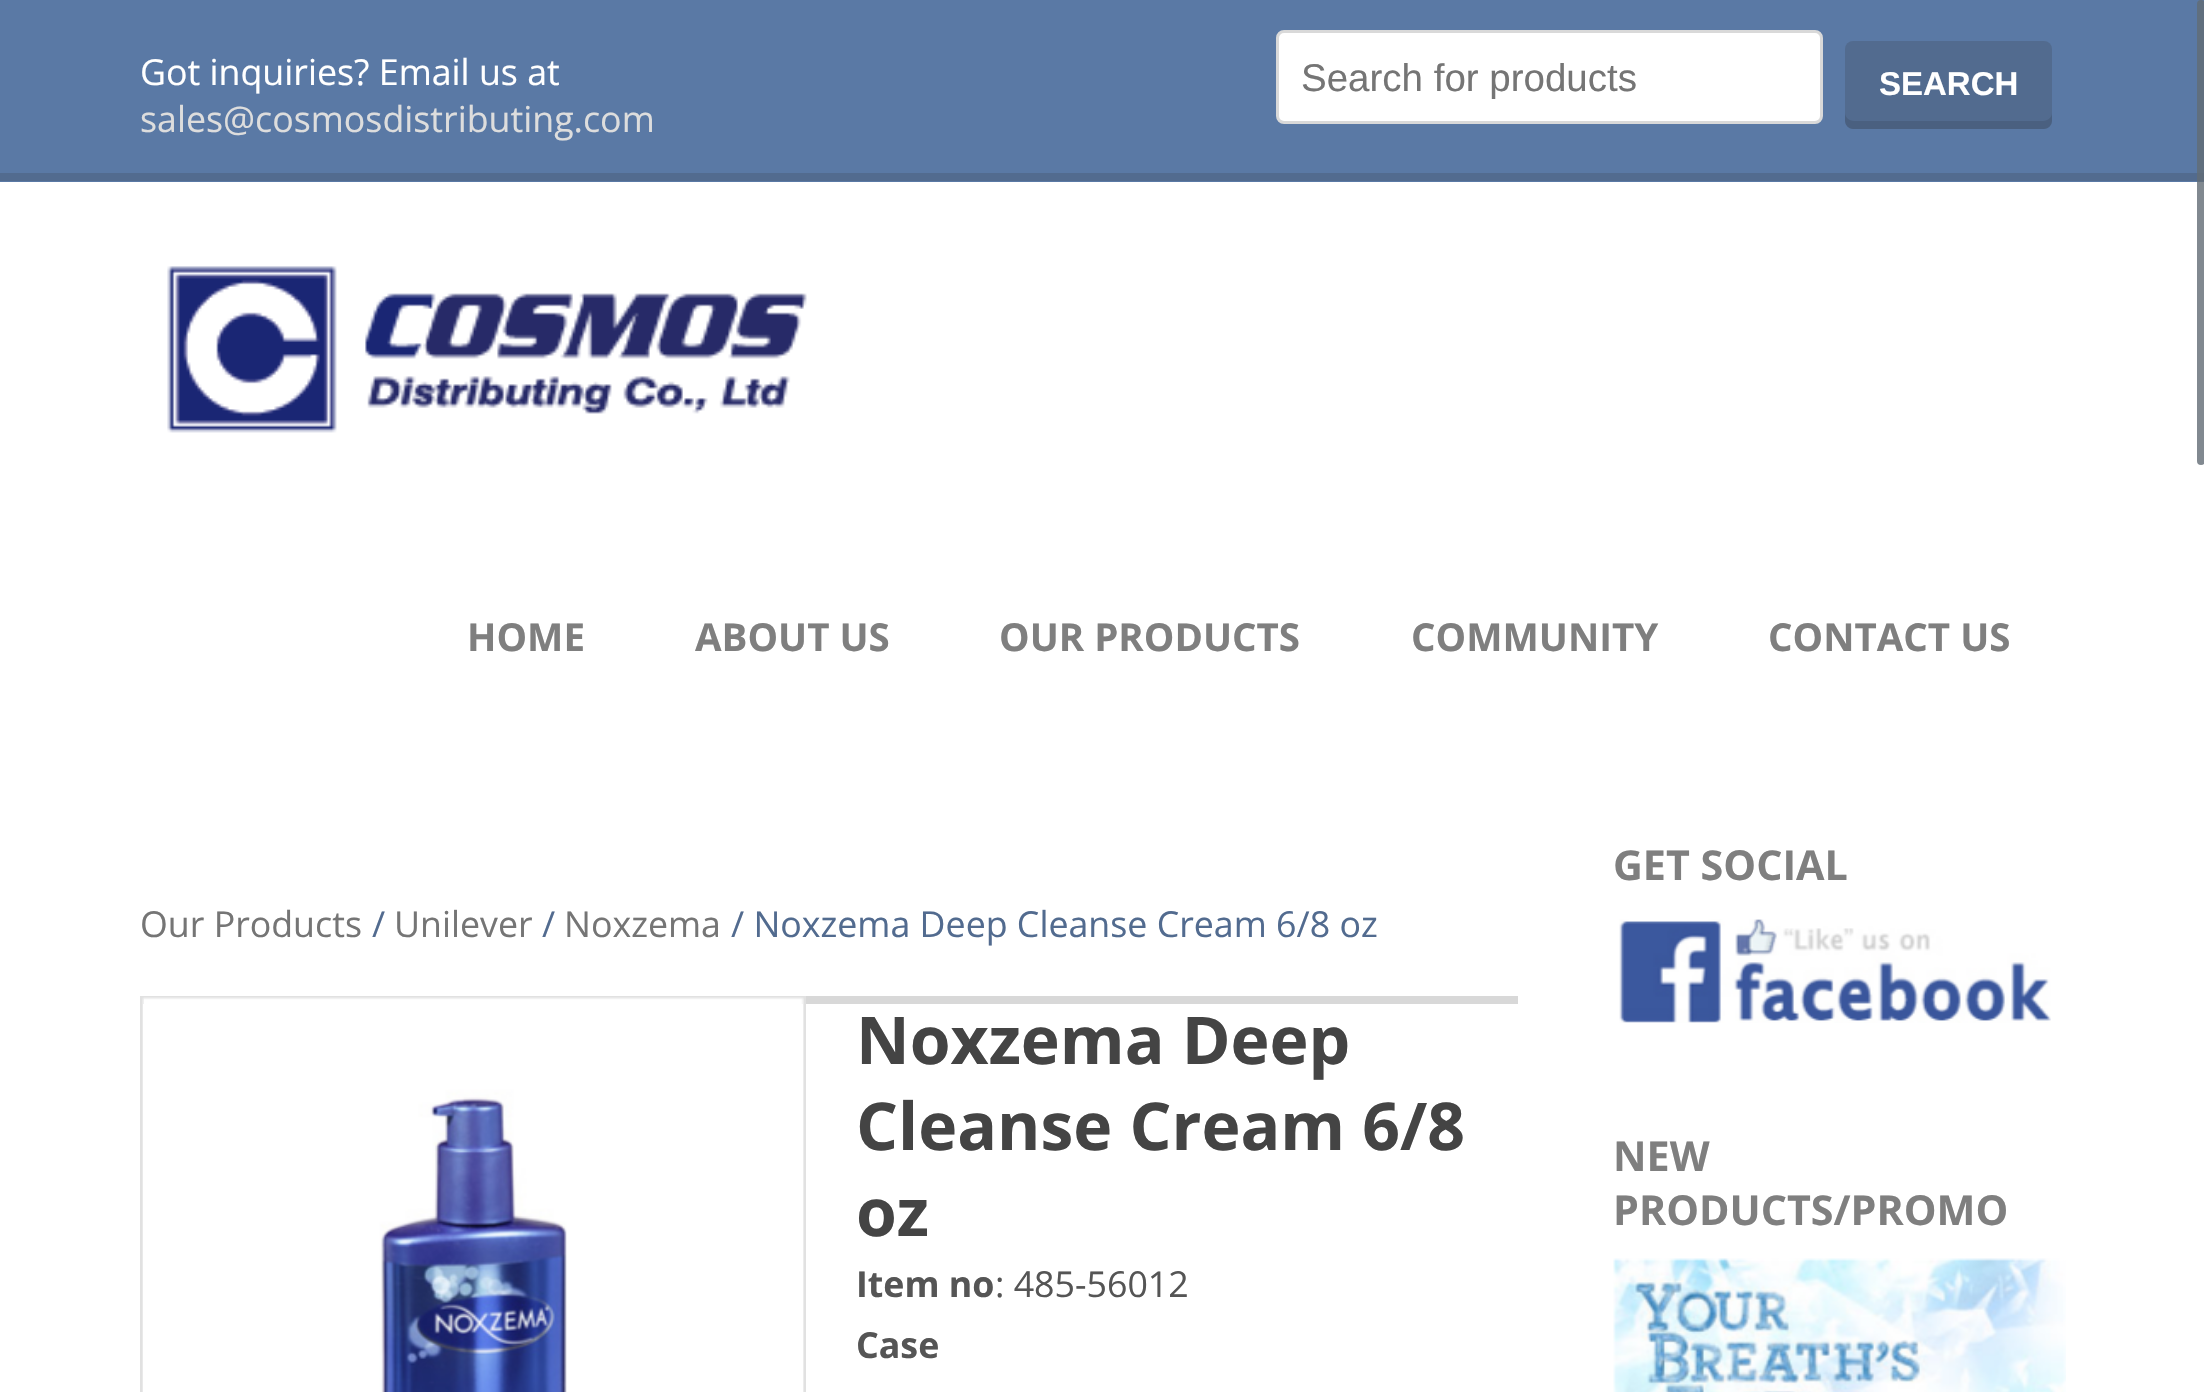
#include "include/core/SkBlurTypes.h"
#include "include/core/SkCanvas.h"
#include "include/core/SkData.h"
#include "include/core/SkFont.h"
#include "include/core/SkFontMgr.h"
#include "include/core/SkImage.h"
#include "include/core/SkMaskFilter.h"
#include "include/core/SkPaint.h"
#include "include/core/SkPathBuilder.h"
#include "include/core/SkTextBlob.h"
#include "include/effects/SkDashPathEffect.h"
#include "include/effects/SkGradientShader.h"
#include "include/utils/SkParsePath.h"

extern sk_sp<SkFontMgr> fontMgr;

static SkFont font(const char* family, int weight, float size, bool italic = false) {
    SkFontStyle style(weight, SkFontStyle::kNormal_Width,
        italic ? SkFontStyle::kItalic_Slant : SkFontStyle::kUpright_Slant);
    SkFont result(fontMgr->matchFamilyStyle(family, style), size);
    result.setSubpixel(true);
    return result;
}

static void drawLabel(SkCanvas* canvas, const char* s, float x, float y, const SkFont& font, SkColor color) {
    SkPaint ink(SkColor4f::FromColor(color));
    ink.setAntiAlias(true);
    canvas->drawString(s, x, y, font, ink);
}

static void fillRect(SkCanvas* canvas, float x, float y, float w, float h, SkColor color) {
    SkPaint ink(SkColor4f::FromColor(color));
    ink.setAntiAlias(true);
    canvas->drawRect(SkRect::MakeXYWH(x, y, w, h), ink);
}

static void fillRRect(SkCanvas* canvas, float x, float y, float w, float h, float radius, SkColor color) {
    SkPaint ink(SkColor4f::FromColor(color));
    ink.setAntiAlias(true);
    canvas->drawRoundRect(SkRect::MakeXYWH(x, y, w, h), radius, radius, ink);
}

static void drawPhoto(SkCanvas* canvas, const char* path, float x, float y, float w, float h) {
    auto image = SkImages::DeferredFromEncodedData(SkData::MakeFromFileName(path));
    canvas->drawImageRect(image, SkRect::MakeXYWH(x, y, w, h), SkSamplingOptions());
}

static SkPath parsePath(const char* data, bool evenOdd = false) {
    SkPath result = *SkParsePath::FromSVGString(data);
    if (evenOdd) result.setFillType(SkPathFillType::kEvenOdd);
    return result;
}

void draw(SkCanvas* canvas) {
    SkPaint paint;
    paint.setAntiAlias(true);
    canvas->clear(0xFFFFFFFF);
    fillRect(canvas, 0, 0, 2204, 182, 0xFF5A79A5);
    fillRect(canvas, 0, 173, 2204, 8, 0xFF526B8F);
    SkFont font1 = font("Open Sans", 400, 35.75f);
    drawLabel(canvas, "Got inquiries? Email us at", 140, 85, font1, 0xFFFFFFFF);
    drawLabel(canvas, "sales@cosmosdistributing.com", 140, 132, font1, 0xFFDDDDDD);
    paint.setColor(0xFFFFFFFF);
    canvas->drawRoundRect(SkRect::MakeXYWH(1277.5f, 31.5f, 544, 91), 6.5f, 6.5f, paint);
    paint.setStroke(true);
    paint.setStrokeWidth(3);
    paint.setColor(0xFFD9D9D9);
    canvas->drawRoundRect(SkRect::MakeXYWH(1277.5f, 31.5f, 544, 91), 6.5f, 6.5f, paint);
    SkFont font2 = font("Liberation Sans", 400, 38.5f);
    drawLabel(canvas, "Search for products", 1301, 91, font2, 0xFF757575);
    fillRRect(canvas, 1845, 41, 207, 88, 8, 0xFF526B8F);
    paint.setStroke(false);
    paint.setColor(0x1A000000);
    canvas->drawPath(parsePath("M1845 113V121C1845 125 1849 129 1853 129H2044C2048 129 2052 125 2052 121V113C2052 117 2048 121 2043 121H1854C1849 121 1845 117 1845 113Z"), paint);
    SkFont font3 = font("Liberation Sans", 700, 33);
    drawLabel(canvas, "SEARCH", 1879, 95, font3, 0xFFFFFFFF);
    drawPhoto(canvas, "assets/img1.png", 167, 266, 640, 167);
    SkFont font4 = font("Open Sans", 700, 38.5f);
    drawLabel(canvas, "HOME", 467, 651, font4, 0xFF7F7F7F);
    drawLabel(canvas, "ABOUT US", 695, 651, font4, 0xFF7F7F7F);
    drawLabel(canvas, "OUR PRODUCTS", 999, 651, font4, 0xFF7F7F7F);
    drawLabel(canvas, "COMMUNITY", 1411, 651, font4, 0xFF7F7F7F);
    drawLabel(canvas, "CONTACT US", 1768, 651, font4, 0xFF7F7F7F);
    drawLabel(canvas, "Our Products", 140, 937, font1, 0xFF757575);
    drawLabel(canvas, "/", 372, 937, font1, 0xFF526B8F);
    drawLabel(canvas, "Unilever", 394, 937, font1, 0xFF757575);
    drawLabel(canvas, "/", 542, 937, font1, 0xFF526B8F);
    drawLabel(canvas, "Noxzema", 564, 937, font1, 0xFF757575);
    drawLabel(canvas, "/ Noxzema Deep Cleanse Cream 6/8 oz", 731, 937, font1, 0xFF526B8F);
    fillRect(canvas, 140, 996, 1378, 8, 0xFFD8D8D8);
    paint.setStroke(true);
    paint.setColor(0xFFE1E1E1);
    canvas->drawRect(SkRect::MakeXYWH(141.5f, 997.5f, 663, 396), paint);
    drawPhoto(canvas, "assets/img2.png", 142, 997, 662, 395);
    SkFont font5 = font("Open Sans", 700, 66);
    drawLabel(canvas, "Noxzema Deep", 856, 1064, font5, 0xFF444444);
    drawLabel(canvas, "Cleanse Cream 6/8", 856, 1150, font5, 0xFF444444);
    drawLabel(canvas, "oz", 856, 1236, font5, 0xFF444444);
    SkFont font6 = font("Open Sans", 700, 35.75f);
    drawLabel(canvas, "Item no", 856, 1297, font6, 0xFF555555);
    drawLabel(canvas, ": 485-56012", 995, 1297, font1, 0xFF555555);
    drawLabel(canvas, "Case", 856, 1358, font6, 0xFF555555);
    SkFont font7 = font("Open Sans", 700, 41.25f);
    drawLabel(canvas, "GET SOCIAL", 1613, 880, font7, 0xFF7F7F7F);
    drawPhoto(canvas, "assets/img3.png", 1619, 919, 432, 104);
    drawLabel(canvas, "NEW", 1613, 1171, font7, 0xFF7F7F7F);
    drawLabel(canvas, "PRODUCTS/PROMO", 1613, 1225, font7, 0xFF7F7F7F);
    drawPhoto(canvas, "assets/img4.png", 1613, 1258, 453, 134);
    fillRRect(canvas, 2197, 0, 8, 465, 4, 0xCC616B74);
}
